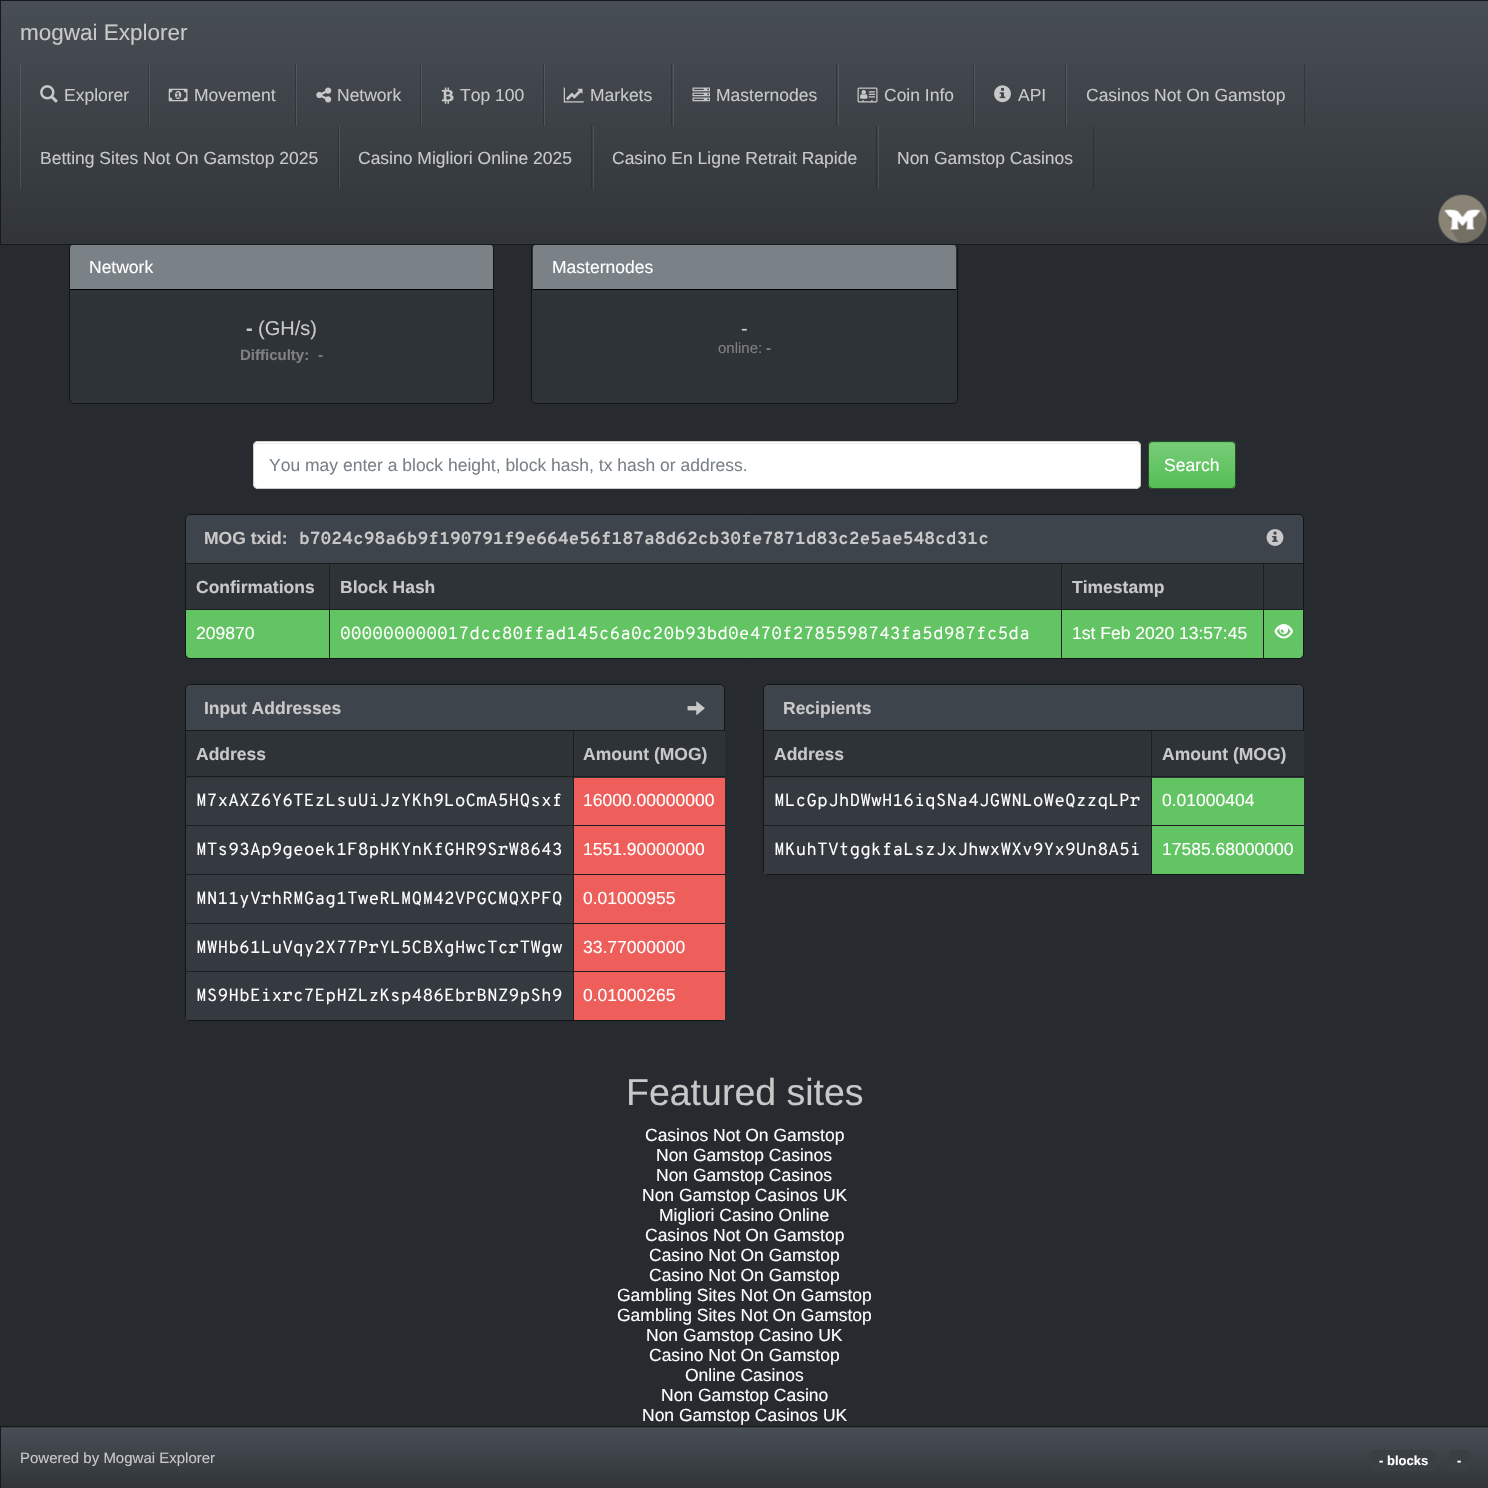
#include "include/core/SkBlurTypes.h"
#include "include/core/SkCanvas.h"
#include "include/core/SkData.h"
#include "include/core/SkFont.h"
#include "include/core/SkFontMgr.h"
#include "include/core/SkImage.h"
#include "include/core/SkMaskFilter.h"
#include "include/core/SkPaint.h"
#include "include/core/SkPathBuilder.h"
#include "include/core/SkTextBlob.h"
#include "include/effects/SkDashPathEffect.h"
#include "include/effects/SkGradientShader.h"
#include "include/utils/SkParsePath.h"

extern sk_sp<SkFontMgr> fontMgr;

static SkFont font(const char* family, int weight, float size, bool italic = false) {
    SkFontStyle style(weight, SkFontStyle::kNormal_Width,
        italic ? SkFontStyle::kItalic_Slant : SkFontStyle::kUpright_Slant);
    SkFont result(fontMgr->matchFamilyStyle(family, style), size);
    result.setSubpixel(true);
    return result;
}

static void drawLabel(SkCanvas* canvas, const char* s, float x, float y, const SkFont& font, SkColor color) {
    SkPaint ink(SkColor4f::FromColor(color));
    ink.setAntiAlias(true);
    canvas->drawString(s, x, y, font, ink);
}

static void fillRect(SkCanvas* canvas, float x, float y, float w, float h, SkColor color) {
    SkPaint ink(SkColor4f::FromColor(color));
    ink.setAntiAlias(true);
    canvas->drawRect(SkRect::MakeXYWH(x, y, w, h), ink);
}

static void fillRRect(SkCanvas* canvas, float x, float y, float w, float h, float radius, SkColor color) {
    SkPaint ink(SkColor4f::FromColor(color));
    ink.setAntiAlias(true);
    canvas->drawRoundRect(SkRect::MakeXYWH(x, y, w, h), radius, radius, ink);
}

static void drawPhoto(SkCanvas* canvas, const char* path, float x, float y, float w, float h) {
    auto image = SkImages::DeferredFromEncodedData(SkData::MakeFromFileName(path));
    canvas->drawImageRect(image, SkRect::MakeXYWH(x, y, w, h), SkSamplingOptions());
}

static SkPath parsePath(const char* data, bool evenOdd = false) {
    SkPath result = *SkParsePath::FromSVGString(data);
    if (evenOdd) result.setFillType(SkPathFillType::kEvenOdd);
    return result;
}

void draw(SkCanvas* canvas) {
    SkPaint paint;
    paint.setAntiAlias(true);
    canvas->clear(0xFF272B30);
    fillRRect(canvas, 69, 243, 425, 161, 5, 0xFF2E3338);
    paint.setStroke(true);
    paint.setStrokeWidth(1);
    paint.setColor(0x99000000);
    canvas->drawRoundRect(SkRect::MakeXYWH(69.5f, 243.5f, 424, 160), 4.5f, 4.5f, paint);
    fillRRect(canvas, 531, 243, 427, 161, 5, 0xFF2E3338);
    canvas->drawRoundRect(SkRect::MakeXYWH(531.5f, 243.5f, 426, 160), 4.5f, 4.5f, paint);
    paint.setStroke(false);
    {
        const SkColor colors[] = {0xFF484E55, 0xFF3A3F44, 0xFF313539};
        const float stops[] = {0, 0.6f, 1};
        const SkPoint ends[] = {{744, 1.2f}, {744, 244}};
        paint.setShader(SkGradientShader::MakeLinear(ends, colors, stops, 3, SkTileMode::kClamp));
        paint.setAlpha(255);
    }
    canvas->drawRect(SkRect::MakeXYWH(1, 1, 1487, 243), paint);
    {
        const SkColor colors[] = {0xFF5A6066, 0xFF4E5257, 0xFF46494D};
        const float stops[] = {0, 0.6f, 1};
        const SkPoint ends[] = {{744, 1.2f}, {744, 244}};
        paint.setShader(SkGradientShader::MakeLinear(ends, colors, stops, 3, SkTileMode::kClamp));
        paint.setAlpha(255);
    }
    canvas->drawRect(SkRect::MakeXYWH(878, 126, 1, 63), paint);
    {
        const SkColor colors[] = {0xFF3A3E44, 0xFF2E3236, 0xFF272A2E};
        const float stops[] = {0, 0.6f, 1};
        const SkPoint ends[] = {{744, 1.2f}, {744, 244}};
        paint.setShader(SkGradientShader::MakeLinear(ends, colors, stops, 3, SkTileMode::kClamp));
        paint.setAlpha(255);
    }
    canvas->drawRect(SkRect::MakeXYWH(1093, 126, 1, 63), paint);
    canvas->drawRect(SkRect::MakeXYWH(876, 126, 1, 63), paint);
    {
        const SkColor colors[] = {0xFF5A6066, 0xFF4E5257, 0xFF46494D};
        const float stops[] = {0, 0.6f, 1};
        const SkPoint ends[] = {{744, 1.2f}, {744, 244}};
        paint.setShader(SkGradientShader::MakeLinear(ends, colors, stops, 3, SkTileMode::kClamp));
        paint.setAlpha(255);
    }
    canvas->drawRect(SkRect::MakeXYWH(339, 126, 1, 63), paint);
    canvas->drawRect(SkRect::MakeXYWH(20, 126, 1, 63), paint);
    {
        const SkColor colors[] = {0xFF3A3E44, 0xFF2E3236, 0xFF272A2E};
        const float stops[] = {0, 0.6f, 1};
        const SkPoint ends[] = {{744, 1.2f}, {744, 244}};
        paint.setShader(SkGradientShader::MakeLinear(ends, colors, stops, 3, SkTileMode::kClamp));
        paint.setAlpha(255);
    }
    canvas->drawRect(SkRect::MakeXYWH(338, 126, 1, 63), paint);
    canvas->drawRect(SkRect::MakeXYWH(1304, 64, 1, 62), paint);
    {
        const SkColor colors[] = {0xFF5A6066, 0xFF4E5257, 0xFF46494D};
        const float stops[] = {0, 0.6f, 1};
        const SkPoint ends[] = {{744, 1.2f}, {744, 244}};
        paint.setShader(SkGradientShader::MakeLinear(ends, colors, stops, 3, SkTileMode::kClamp));
        paint.setAlpha(255);
    }
    canvas->drawRect(SkRect::MakeXYWH(974, 64, 1, 62), paint);
    canvas->drawRect(SkRect::MakeXYWH(838, 64, 1, 62), paint);
    {
        const SkColor colors[] = {0xFF3A3E44, 0xFF2E3236, 0xFF272A2E};
        const float stops[] = {0, 0.6f, 1};
        const SkPoint ends[] = {{744, 1.2f}, {744, 244}};
        paint.setShader(SkGradientShader::MakeLinear(ends, colors, stops, 3, SkTileMode::kClamp));
        paint.setAlpha(255);
    }
    canvas->drawRect(SkRect::MakeXYWH(973, 64, 1, 62), paint);
    {
        const SkColor colors[] = {0xFF5A6066, 0xFF4E5257, 0xFF46494D};
        const float stops[] = {0, 0.6f, 1};
        const SkPoint ends[] = {{744, 1.2f}, {744, 244}};
        paint.setShader(SkGradientShader::MakeLinear(ends, colors, stops, 3, SkTileMode::kClamp));
        paint.setAlpha(255);
    }
    canvas->drawRect(SkRect::MakeXYWH(673, 64, 1, 62), paint);
    {
        const SkColor colors[] = {0xFF3A3E44, 0xFF2E3236, 0xFF272A2E};
        const float stops[] = {0, 0.6f, 1};
        const SkPoint ends[] = {{744, 1.2f}, {744, 244}};
        paint.setShader(SkGradientShader::MakeLinear(ends, colors, stops, 3, SkTileMode::kClamp));
        paint.setAlpha(255);
    }
    canvas->drawRect(SkRect::MakeXYWH(836, 64, 1, 62), paint);
    {
        const SkColor colors[] = {0xFF5A6066, 0xFF4E5257, 0xFF46494D};
        const float stops[] = {0, 0.6f, 1};
        const SkPoint ends[] = {{744, 1.2f}, {744, 244}};
        paint.setShader(SkGradientShader::MakeLinear(ends, colors, stops, 3, SkTileMode::kClamp));
        paint.setAlpha(255);
    }
    canvas->drawRect(SkRect::MakeXYWH(544, 64, 1, 62), paint);
    {
        const SkColor colors[] = {0xFF3A3E44, 0xFF2E3236, 0xFF272A2E};
        const float stops[] = {0, 0.6f, 1};
        const SkPoint ends[] = {{744, 1.2f}, {744, 244}};
        paint.setShader(SkGradientShader::MakeLinear(ends, colors, stops, 3, SkTileMode::kClamp));
        paint.setAlpha(255);
    }
    canvas->drawRect(SkRect::MakeXYWH(671, 64, 1, 62), paint);
    {
        const SkColor colors[] = {0xFF5A6066, 0xFF4E5257, 0xFF46494D};
        const float stops[] = {0, 0.6f, 1};
        const SkPoint ends[] = {{744, 1.2f}, {744, 244}};
        paint.setShader(SkGradientShader::MakeLinear(ends, colors, stops, 3, SkTileMode::kClamp));
        paint.setAlpha(255);
    }
    canvas->drawRect(SkRect::MakeXYWH(421, 64, 1, 62), paint);
    {
        const SkColor colors[] = {0xFF3A3E44, 0xFF2E3236, 0xFF272A2E};
        const float stops[] = {0, 0.6f, 1};
        const SkPoint ends[] = {{744, 1.2f}, {744, 244}};
        paint.setShader(SkGradientShader::MakeLinear(ends, colors, stops, 3, SkTileMode::kClamp));
        paint.setAlpha(255);
    }
    canvas->drawRect(SkRect::MakeXYWH(543, 64, 1, 62), paint);
    {
        const SkColor colors[] = {0xFF5A6066, 0xFF4E5257, 0xFF46494D};
        const float stops[] = {0, 0.6f, 1};
        const SkPoint ends[] = {{744, 1.2f}, {744, 244}};
        paint.setShader(SkGradientShader::MakeLinear(ends, colors, stops, 3, SkTileMode::kClamp));
        paint.setAlpha(255);
    }
    canvas->drawRect(SkRect::MakeXYWH(296, 64, 1, 62), paint);
    {
        const SkColor colors[] = {0xFF3A3E44, 0xFF2E3236, 0xFF272A2E};
        const float stops[] = {0, 0.6f, 1};
        const SkPoint ends[] = {{744, 1.2f}, {744, 244}};
        paint.setShader(SkGradientShader::MakeLinear(ends, colors, stops, 3, SkTileMode::kClamp));
        paint.setAlpha(255);
    }
    canvas->drawRect(SkRect::MakeXYWH(420, 64, 1, 62), paint);
    {
        const SkColor colors[] = {0xFF5A6066, 0xFF4E5257, 0xFF46494D};
        const float stops[] = {0, 0.6f, 1};
        const SkPoint ends[] = {{744, 1.2f}, {744, 244}};
        paint.setShader(SkGradientShader::MakeLinear(ends, colors, stops, 3, SkTileMode::kClamp));
        paint.setAlpha(255);
    }
    canvas->drawRect(SkRect::MakeXYWH(149, 64, 1, 62), paint);
    {
        const SkColor colors[] = {0xFF3A3E44, 0xFF2E3236, 0xFF272A2E};
        const float stops[] = {0, 0.6f, 1};
        const SkPoint ends[] = {{744, 1.2f}, {744, 244}};
        paint.setShader(SkGradientShader::MakeLinear(ends, colors, stops, 3, SkTileMode::kClamp));
        paint.setAlpha(255);
    }
    canvas->drawRect(SkRect::MakeXYWH(295, 64, 1, 62), paint);
    {
        const SkColor colors[] = {0xFF5A6066, 0xFF4E5257, 0xFF46494D};
        const float stops[] = {0, 0.6f, 1};
        const SkPoint ends[] = {{744, 1.2f}, {744, 244}};
        paint.setShader(SkGradientShader::MakeLinear(ends, colors, stops, 3, SkTileMode::kClamp));
        paint.setAlpha(255);
    }
    canvas->drawRect(SkRect::MakeXYWH(20, 64, 1, 62), paint);
    {
        const SkColor colors[] = {0xFF3A3E44, 0xFF2E3236, 0xFF272A2E};
        const float stops[] = {0, 0.6f, 1};
        const SkPoint ends[] = {{744, 1.2f}, {744, 244}};
        paint.setShader(SkGradientShader::MakeLinear(ends, colors, stops, 3, SkTileMode::kClamp));
        paint.setAlpha(255);
    }
    canvas->drawRect(SkRect::MakeXYWH(148, 64, 1, 62), paint);
    paint.setShader(nullptr);
    paint.setColor(0xFF7A8288);
    canvas->drawPath(parsePath("M74 244H489C491 244 493 246 493 248V290H70V248C70 246 72 244 74 244Z"), paint);
    canvas->drawPath(parsePath("M537 244H952C954 244 956 246 956 248V290H533V248C533 246 535 244 537 244Z"), paint);
    paint.setStroke(true);
    paint.setColor(0xFF17191B);
    canvas->drawRect(SkRect::MakeXYWH(0.5f, 0.5f, 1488, 244), paint);
    SkFont font1 = font("Liberation Sans", 400, 22.5f);
    drawLabel(canvas, "mogwai Explorer", 20, 40, font1, 0xFFC8C8C8);
    drawPhoto(canvas, "assets/img1.png", 40, 85, 18, 18);
    SkFont font2 = font("Liberation Sans", 400, 17.5f);
    drawLabel(canvas, "Explorer", 64, 101, font2, 0xFFC8C8C8);
    drawPhoto(canvas, "assets/img2.png", 168, 88, 20, 14);
    drawLabel(canvas, "Movement", 194, 101, font2, 0xFFC8C8C8);
    drawPhoto(canvas, "assets/img3.png", 316, 87, 16, 16);
    drawLabel(canvas, "Network", 337, 101, font2, 0xFFC8C8C8);
    drawPhoto(canvas, "assets/img4.png", 441, 87, 13, 17);
    drawLabel(canvas, "Top 100", 460, 101, font2, 0xFFC8C8C8);
    drawPhoto(canvas, "assets/img5.png", 563, 87, 21, 16);
    drawLabel(canvas, "Markets", 590, 101, font2, 0xFFC8C8C8);
    drawPhoto(canvas, "assets/img6.png", 692, 87, 18, 15);
    drawLabel(canvas, "Masternodes", 716, 101, font2, 0xFFC8C8C8);
    drawPhoto(canvas, "assets/img7.png", 857, 87, 21, 16);
    drawLabel(canvas, "Coin Info", 884, 101, font2, 0xFFC8C8C8);
    fillRect(canvas, 1065, 64, 1, 62, 0x33000000);
    drawPhoto(canvas, "assets/img8.png", 994, 85, 17, 18);
    drawLabel(canvas, "API", 1018, 101, font2, 0xFFC8C8C8);
    fillRect(canvas, 1066, 64, 1, 62, 0x1AFFFFFF);
    drawLabel(canvas, "Casinos Not On Gamstop", 1086, 101, font2, 0xFFC8C8C8);
    drawLabel(canvas, "Betting Sites Not On Gamstop 2025", 40, 164, font2, 0xFFC8C8C8);
    fillRect(canvas, 591, 126, 1, 63, 0x33000000);
    drawLabel(canvas, "Casino Migliori Online 2025", 358, 164, font2, 0xFFC8C8C8);
    fillRect(canvas, 593, 126, 1, 63, 0x1AFFFFFF);
    drawLabel(canvas, "Casino En Ligne Retrait Rapide", 612, 164, font2, 0xFFC8C8C8);
    drawLabel(canvas, "Non Gamstop Casinos", 897, 164, font2, 0xFFC8C8C8);
    drawPhoto(canvas, "assets/img9.png", 1438, 194, 49, 49);
    fillRect(canvas, 70, 289, 423, 1, 0xFF000000);
    drawLabel(canvas, "Network", 89, 273, font2, 0xFFFFFFFF);
    SkFont font3 = font("Liberation Sans", 700, 20);
    drawLabel(canvas, "-", 246, 335, font3, 0xFFC8C8C8);
    SkFont font4 = font("Liberation Sans", 400, 20);
    drawLabel(canvas, "(GH/s)", 258, 335, font4, 0xFFC8C8C8);
    SkFont font5 = font("Liberation Sans", 700, 15);
    drawLabel(canvas, "Difficulty:", 240, 360, font5, 0xFF808080);
    drawLabel(canvas, "-", 318, 360, font5, 0xFF808080);
    fillRect(canvas, 533, 289, 423, 1, 0xFF000000);
    drawLabel(canvas, "Masternodes", 552, 273, font2, 0xFFFFFFFF);
    drawLabel(canvas, "-", 741, 335, font4, 0xFFC8C8C8);
    SkFont font6 = font("Liberation Sans", 400, 15);
    drawLabel(canvas, "online:", 718, 353, font6, 0xFF808080);
    drawLabel(canvas, "-", 766, 353, font5, 0xFF808080);
    fillRRect(canvas, 253, 441, 888, 48, 5, 0xFFFFFFFF);
    paint.setStroke(false);
    paint.setColor(0xFFECECEC);
    canvas->drawPath(parsePath("M258 444H1136C1138 444 1140 445 1140 448C1140 445 1139 443 1136 443H258C255 443 254 445 254 448C254 445 255 444 258 444Z"), paint);
    paint.setStroke(true);
    paint.setColor(0xFFCCCCCC);
    canvas->drawRoundRect(SkRect::MakeXYWH(253.5f, 441.5f, 887, 47), 4.5f, 4.5f, paint);
    drawLabel(canvas, "You may enter a block height, block hash, tx hash or address.", 269, 471, font2, 0xFF7A8288);
    fillRRect(canvas, 1148, 441, 88, 48, 5, 0xFF62C462);
    paint.setStroke(false);
    {
        const SkColor colors[] = {0xFF78CC78, 0xFF62C462, 0xFF53BE53};
        const float stops[] = {0, 0.6f, 1};
        const SkPoint ends[] = {{1192, 443}, {1192, 488}};
        paint.setShader(SkGradientShader::MakeLinear(ends, colors, stops, 3, SkTileMode::kClamp));
        paint.setAlpha(255);
    }
    canvas->drawRect(SkRect::MakeXYWH(1149, 443, 86, 45), paint);
    paint.setStroke(true);
    paint.setShader(nullptr);
    paint.setColor(0x99000000);
    canvas->drawRoundRect(SkRect::MakeXYWH(1148.5f, 441.5f, 87, 47), 4.5f, 4.5f, paint);
    drawLabel(canvas, "Search", 1164, 471, font2, 0xFFFFFFFF);
    fillRRect(canvas, 185, 514, 1119, 145, 5, 0xFF2E3338);
    canvas->drawRoundRect(SkRect::MakeXYWH(185.5f, 514.5f, 1118, 144), 4.5f, 4.5f, paint);
    paint.setStroke(false);
    paint.setColor(0xFF3E444C);
    canvas->drawPath(parsePath("M190 515H1299C1301 515 1303 517 1303 519V564H186V519C186 517 188 515 190 515Z"), paint);
    fillRect(canvas, 186, 563, 1117, 1, 0xFF191B1E);
    SkFont font7 = font("Liberation Sans", 700, 17.5f);
    drawLabel(canvas, "MOG txid:", 204, 544, font7, 0xFFC8C8C8);
    SkFont font8 = font("Overpass Mono", 700, 17.5f);
    drawLabel(canvas, "b7024c98a6b9f190791f9e664e56f187a8d62cb30fe7871d83c2e5ae548cd31c", 299, 544, font8, 0xFFC8C8C8);
    drawPhoto(canvas, "assets/img10.png", 1266, 529, 18, 17);
    paint.setColor(0xFF2E3338);
    canvas->drawPath(parsePath("M186 564H1303V654C1303 656 1301 658 1299 658H190C188 658 186 656 186 654Z"), paint);
    drawLabel(canvas, "Confirmations", 196, 593, font7, 0xFFC8C8C8);
    drawLabel(canvas, "Block Hash", 340, 593, font7, 0xFFC8C8C8);
    drawLabel(canvas, "Timestamp", 1072, 593, font7, 0xFFC8C8C8);
    paint.setColor(0xFF62C462);
    canvas->drawPath(parsePath("M1264 610H1303V654C1303 656 1301 658 1299 658H1264Z"), paint);
    fillRect(canvas, 185, 609, 1119, 1, 0xFF1C1E22);
    drawPhoto(canvas, "assets/img11.png", 1274, 624, 19, 15);
    canvas->drawPath(parsePath("M186 610H329V658H190C188 658 186 656 186 654Z"), paint);
    fillRect(canvas, 329, 564, 1, 95, 0xFF1C1E22);
    drawLabel(canvas, "209870", 196, 639, font2, 0xFFFFFFFF);
    fillRect(canvas, 330, 610, 731, 48, 0xFF62C462);
    fillRect(canvas, 1061, 564, 1, 95, 0xFF1C1E22);
    SkFont font9 = font("Overpass Mono", 400, 17.5f);
    drawLabel(canvas, "000000000017dcc80ffad145c6a0c20b93bd0e470f2785598743fa5d987fc5da", 340, 639, font9, 0xFFFFFFFF);
    fillRect(canvas, 1062, 610, 201, 48, 0xFF62C462);
    fillRect(canvas, 1263, 564, 1, 95, 0xFF1C1E22);
    drawLabel(canvas, "1st Feb 2020 13:57:45", 1072, 639, font2, 0xFFFFFFFF);
    fillRRect(canvas, 185, 684, 540, 337, 5, 0xFF2E3338);
    paint.setStroke(true);
    paint.setColor(0x99000000);
    canvas->drawRoundRect(SkRect::MakeXYWH(185.5f, 684.5f, 539, 336), 4.5f, 4.5f, paint);
    paint.setStroke(false);
    paint.setColor(0xFF3E444C);
    canvas->drawPath(parsePath("M190 685H720C722 685 724 687 724 689V731H186V689C186 687 188 685 190 685Z"), paint);
    fillRect(canvas, 186, 730, 538, 1, 0xFF191B1E);
    drawLabel(canvas, "Input Addresses", 204, 714, font7, 0xFFC8C8C8);
    drawPhoto(canvas, "assets/img12.png", 687, 701, 18, 14);
    fillRect(canvas, 724, 731, 1, 47, 0xFF2E3338);
    drawLabel(canvas, "Address", 196, 760, font7, 0xFFC8C8C8);
    drawLabel(canvas, "Amount (MOG)", 583, 760, font7, 0xFFC8C8C8);
    fillRect(canvas, 186, 778, 387, 47, 0xFF353A41);
    fillRect(canvas, 185, 776, 540, 1, 0xFF1C1E22);
    fillRect(canvas, 185, 825, 540, 1, 0xFF1C1E22);
    fillRect(canvas, 185, 874, 540, 1, 0xFF1C1E22);
    fillRect(canvas, 185, 923, 540, 1, 0xFF1C1E22);
    fillRect(canvas, 186, 924, 387, 96, 0xFF353A41);
    fillRect(canvas, 574, 924, 151, 96, 0xFFEE5F5B);
    fillRect(canvas, 185, 971, 540, 1, 0xFF1C1E22);
    fillRect(canvas, 573, 971, 1, 50, 0xFF1C1E22);
    fillRect(canvas, 573, 923, 1, 50, 0xFF1C1E22);
    fillRect(canvas, 573, 874, 1, 50, 0xFF1C1E22);
    fillRect(canvas, 573, 825, 1, 50, 0xFF1C1E22);
    fillRect(canvas, 573, 731, 1, 95, 0xFF1C1E22);
    drawLabel(canvas, "M7xAXZ6Y6TEzLsuUiJzYKh9LoCmA5HQsxf", 196, 806, font9, 0xFFFFFFFF);
    fillRect(canvas, 574, 778, 151, 47, 0xFFEE5F5B);
    drawLabel(canvas, "16000.00000000", 583, 806, font2, 0xFFFFFFFF);
    fillRect(canvas, 186, 826, 387, 48, 0xFF353A41);
    drawLabel(canvas, "MTs93Ap9geoek1F8pHKYnKfGHR9SrW8643", 196, 855, font9, 0xFFFFFFFF);
    fillRect(canvas, 574, 826, 151, 48, 0xFFEE5F5B);
    drawLabel(canvas, "1551.90000000", 583, 855, font2, 0xFFFFFFFF);
    fillRect(canvas, 186, 875, 387, 48, 0xFF353A41);
    drawLabel(canvas, "MN11yVrhRMGag1TweRLMQM42VPGCMQXPFQ", 196, 904, font9, 0xFFFFFFFF);
    fillRect(canvas, 574, 875, 151, 48, 0xFFEE5F5B);
    drawLabel(canvas, "0.01000955", 583, 904, font2, 0xFFFFFFFF);
    drawLabel(canvas, "MWHb61LuVqy2X77PrYL5CBXgHwcTcrTWgw", 196, 953, font9, 0xFFFFFFFF);
    drawLabel(canvas, "33.77000000", 583, 953, font2, 0xFFFFFFFF);
    drawLabel(canvas, "MS9HbEixrc7EpHZLzKsp486EbrBNZ9pSh9", 196, 1001, font9, 0xFFFFFFFF);
    drawLabel(canvas, "0.01000265", 583, 1001, font2, 0xFFFFFFFF);
    fillRRect(canvas, 763, 684, 541, 191, 5, 0xFF2E3338);
    paint.setStroke(true);
    paint.setColor(0x99000000);
    canvas->drawRoundRect(SkRect::MakeXYWH(763.5f, 684.5f, 540, 190), 4.5f, 4.5f, paint);
    paint.setStroke(false);
    paint.setColor(0xFF3E444C);
    canvas->drawPath(parsePath("M768 685H1299C1301 685 1303 687 1303 689V731H764V689C764 687 766 685 768 685Z"), paint);
    fillRect(canvas, 764, 730, 539, 1, 0xFF191B1E);
    drawLabel(canvas, "Recipients", 783, 714, font7, 0xFFC8C8C8);
    fillRect(canvas, 1303, 731, 1, 47, 0xFF2E3338);
    drawLabel(canvas, "Address", 774, 760, font7, 0xFFC8C8C8);
    drawLabel(canvas, "Amount (MOG)", 1162, 760, font7, 0xFFC8C8C8);
    fillRect(canvas, 764, 778, 387, 47, 0xFF353A41);
    fillRect(canvas, 764, 776, 540, 1, 0xFF1C1E22);
    fillRect(canvas, 764, 825, 540, 1, 0xFF1C1E22);
    fillRect(canvas, 1151, 825, 1, 50, 0xFF1C1E22);
    fillRect(canvas, 1151, 731, 1, 95, 0xFF1C1E22);
    drawLabel(canvas, "MLcGpJhDWwH16iqSNa4JGWNLoWeQzzqLPr", 774, 806, font9, 0xFFFFFFFF);
    fillRect(canvas, 1152, 778, 152, 47, 0xFF62C462);
    drawLabel(canvas, "0.01000404", 1162, 806, font2, 0xFFFFFFFF);
    fillRect(canvas, 764, 826, 387, 48, 0xFF353A41);
    drawLabel(canvas, "MKuhTVtggkfaLszJxJhwxWXv9Yx9Un8A5i", 774, 855, font9, 0xFFFFFFFF);
    fillRect(canvas, 1152, 826, 152, 48, 0xFF62C462);
    drawLabel(canvas, "17585.68000000", 1162, 855, font2, 0xFFFFFFFF);
    SkFont font10 = font("Liberation Sans", 400, 37.5f);
    drawLabel(canvas, "Featured sites", 626, 1105, font10, 0xFFC8C8C8);
    drawLabel(canvas, "Casinos Not On Gamstop", 645, 1141, font2, 0xFFFFFFFF);
    drawLabel(canvas, "Non Gamstop Casinos", 656, 1161, font2, 0xFFFFFFFF);
    drawLabel(canvas, "Non Gamstop Casinos", 656, 1181, font2, 0xFFFFFFFF);
    drawLabel(canvas, "Non Gamstop Casinos UK", 642, 1201, font2, 0xFFFFFFFF);
    drawLabel(canvas, "Migliori Casino Online", 659, 1221, font2, 0xFFFFFFFF);
    drawLabel(canvas, "Casinos Not On Gamstop", 645, 1241, font2, 0xFFFFFFFF);
    drawLabel(canvas, "Casino Not On Gamstop", 649, 1261, font2, 0xFFFFFFFF);
    drawLabel(canvas, "Casino Not On Gamstop", 649, 1281, font2, 0xFFFFFFFF);
    drawLabel(canvas, "Gambling Sites Not On Gamstop", 617, 1301, font2, 0xFFFFFFFF);
    drawLabel(canvas, "Gambling Sites Not On Gamstop", 617, 1321, font2, 0xFFFFFFFF);
    drawLabel(canvas, "Non Gamstop Casino UK", 646, 1341, font2, 0xFFFFFFFF);
    drawLabel(canvas, "Casino Not On Gamstop", 649, 1361, font2, 0xFFFFFFFF);
    drawLabel(canvas, "Online Casinos", 685, 1381, font2, 0xFFFFFFFF);
    drawLabel(canvas, "Non Gamstop Casino", 661, 1401, font2, 0xFFFFFFFF);
    drawLabel(canvas, "Non Gamstop Casinos UK", 642, 1421, font2, 0xFFFFFFFF);
    fillRect(canvas, 1, 1427, 1487, 1, 0xFF3A3F44);
    {
        const SkColor colors[] = {0xFF484E55, 0xFF3A3F44, 0xFF313539};
        const float stops[] = {0, 0.6f, 1};
        const SkPoint ends[] = {{744, 1428}, {744, 1488}};
        paint.setShader(SkGradientShader::MakeLinear(ends, colors, stops, 3, SkTileMode::kClamp));
        paint.setAlpha(255);
    }
    canvas->drawRect(SkRect::MakeXYWH(1, 1428, 1487, 60), paint);
    paint.setStroke(true);
    paint.setShader(nullptr);
    paint.setColor(0xFF17191B);
    canvas->drawRect(SkRect::MakeXYWH(0.5f, 1426.5f, 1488, 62), paint);
    drawLabel(canvas, "Powered by Mogwai Explorer", 20, 1463, font6, 0xFFC8C8C8);
    paint.setStroke(false);
    paint.setColor(0xFF3A3F44);
    canvas->drawPath(parsePath("M1374 1450H1383V1471H1374C1372.5 1471 1371 1469.5 1371 1468V1453C1371 1451.5 1372.5 1450 1374 1450Z"), paint);
    canvas->drawPath(parsePath("M1383 1450H1433C1434.5 1450 1436 1451.5 1436 1453V1468C1436 1469.5 1434.5 1471 1433 1471H1383Z"), paint);
    SkFont font11 = font("Liberation Sans", 700, 13);
    drawLabel(canvas, "- blocks", 1379, 1465, font11, 0xFFFFFFFF);
    fillRRect(canvas, 1449, 1450, 20, 21, 3, 0xFF3A3F44);
    drawLabel(canvas, "-", 1457, 1465, font11, 0xFFFFFFFF);
}
